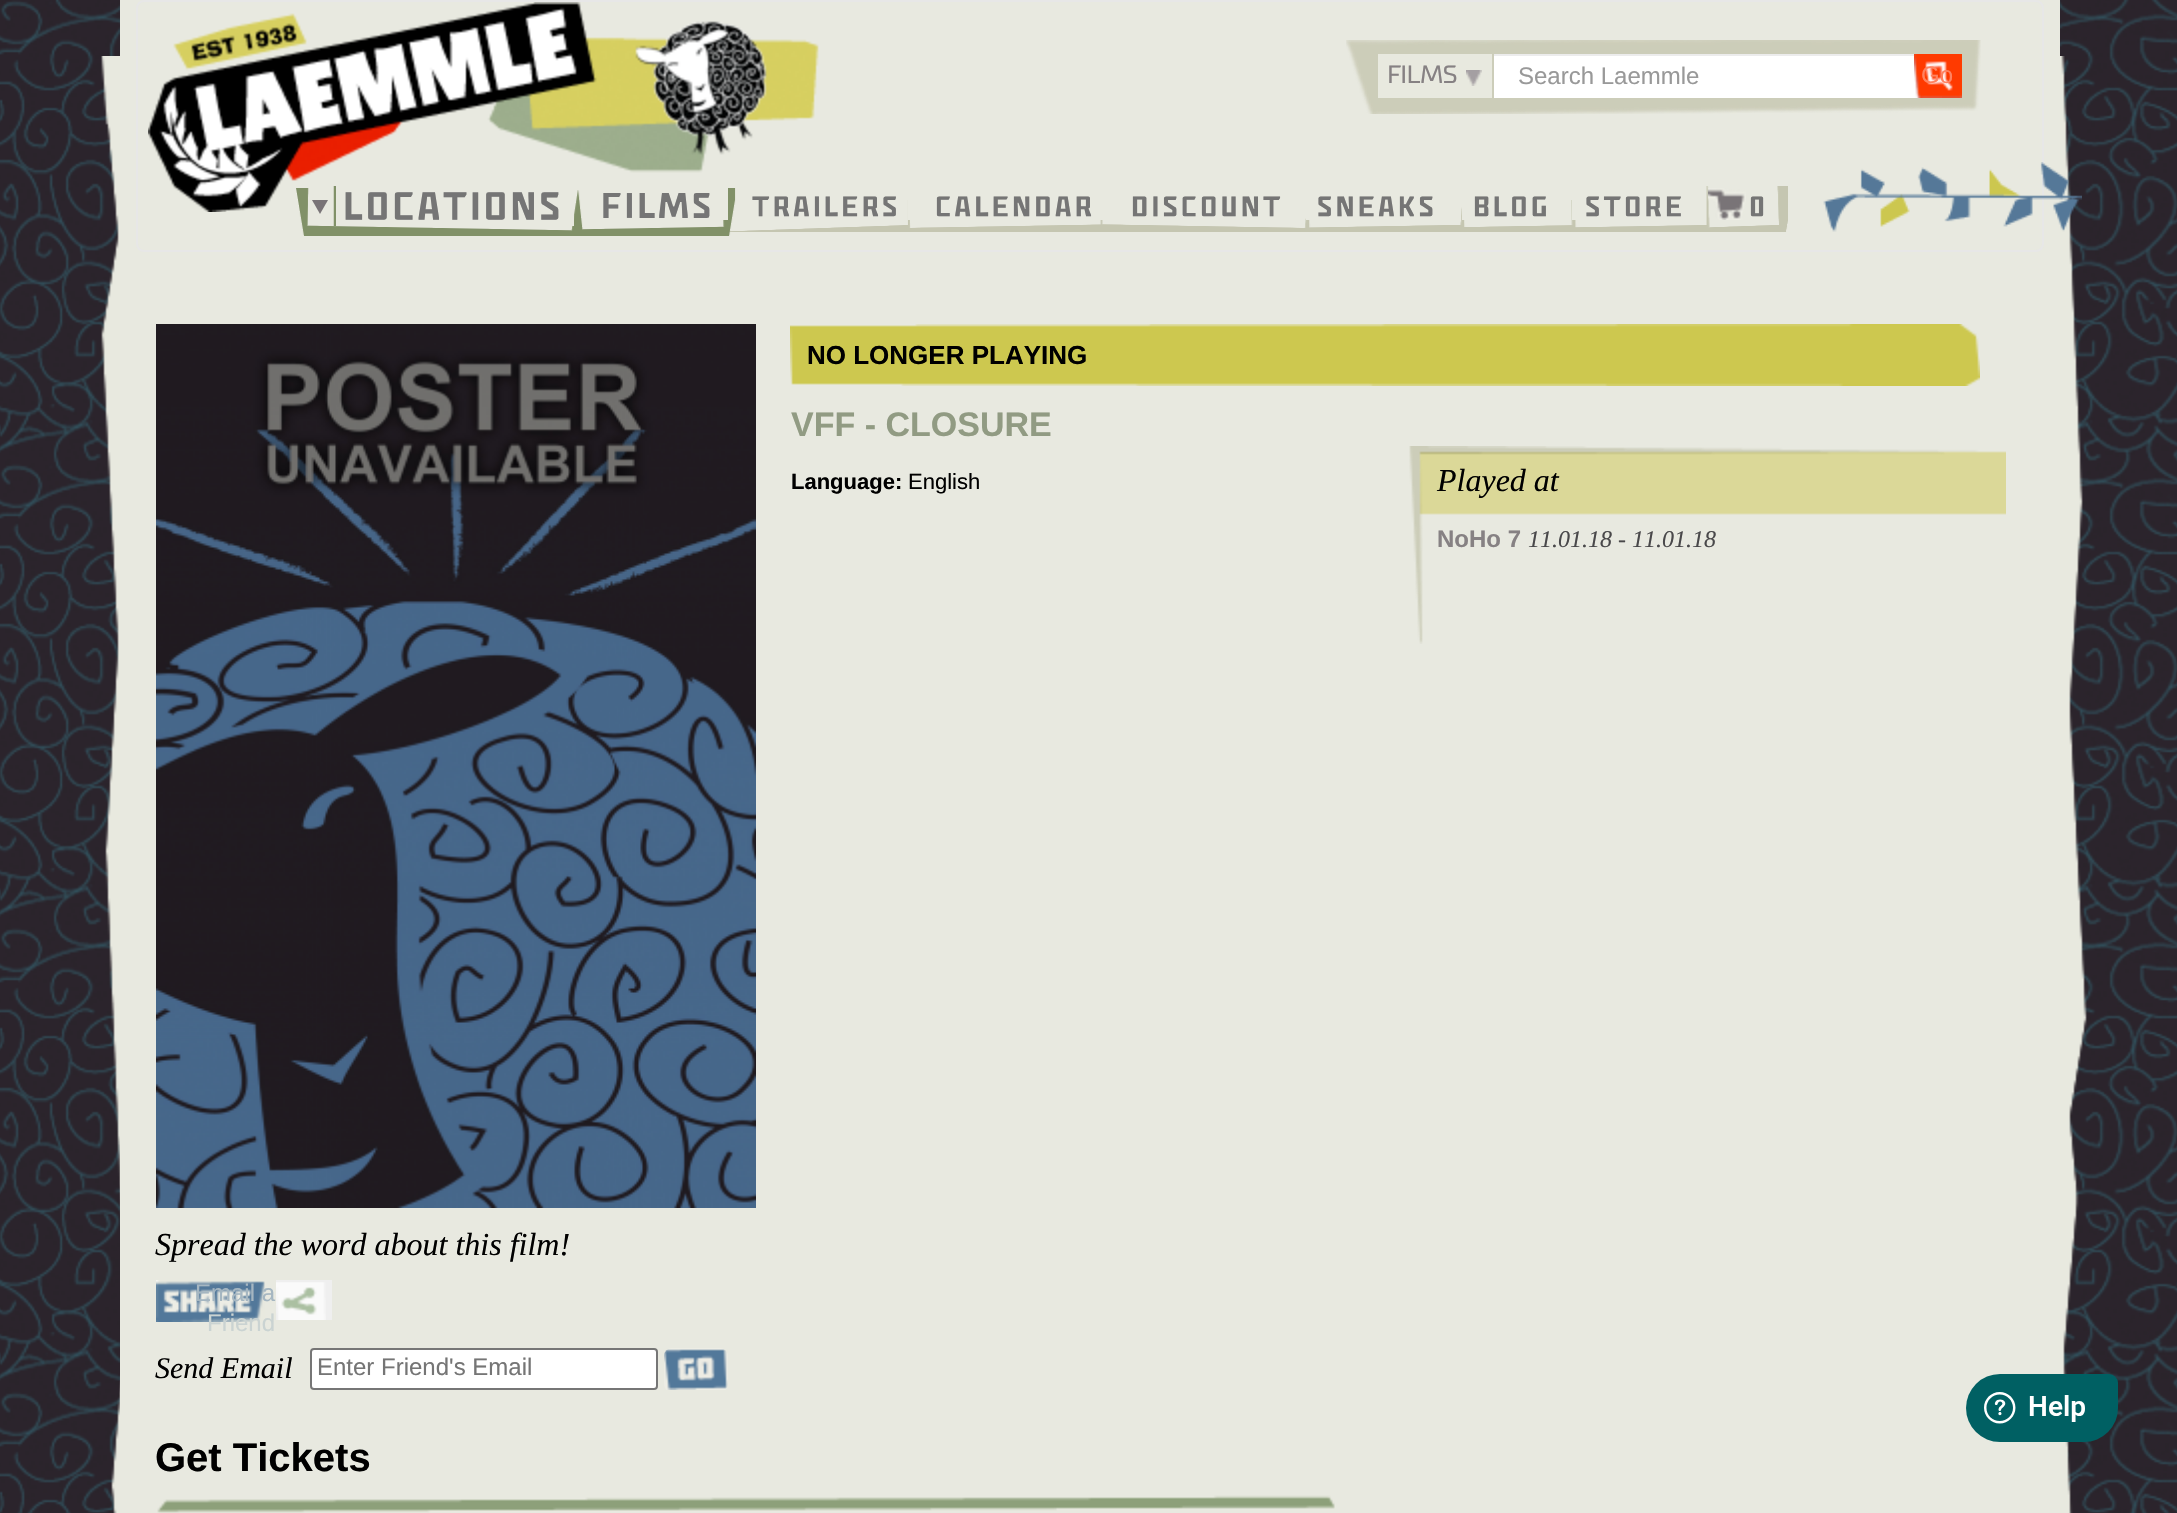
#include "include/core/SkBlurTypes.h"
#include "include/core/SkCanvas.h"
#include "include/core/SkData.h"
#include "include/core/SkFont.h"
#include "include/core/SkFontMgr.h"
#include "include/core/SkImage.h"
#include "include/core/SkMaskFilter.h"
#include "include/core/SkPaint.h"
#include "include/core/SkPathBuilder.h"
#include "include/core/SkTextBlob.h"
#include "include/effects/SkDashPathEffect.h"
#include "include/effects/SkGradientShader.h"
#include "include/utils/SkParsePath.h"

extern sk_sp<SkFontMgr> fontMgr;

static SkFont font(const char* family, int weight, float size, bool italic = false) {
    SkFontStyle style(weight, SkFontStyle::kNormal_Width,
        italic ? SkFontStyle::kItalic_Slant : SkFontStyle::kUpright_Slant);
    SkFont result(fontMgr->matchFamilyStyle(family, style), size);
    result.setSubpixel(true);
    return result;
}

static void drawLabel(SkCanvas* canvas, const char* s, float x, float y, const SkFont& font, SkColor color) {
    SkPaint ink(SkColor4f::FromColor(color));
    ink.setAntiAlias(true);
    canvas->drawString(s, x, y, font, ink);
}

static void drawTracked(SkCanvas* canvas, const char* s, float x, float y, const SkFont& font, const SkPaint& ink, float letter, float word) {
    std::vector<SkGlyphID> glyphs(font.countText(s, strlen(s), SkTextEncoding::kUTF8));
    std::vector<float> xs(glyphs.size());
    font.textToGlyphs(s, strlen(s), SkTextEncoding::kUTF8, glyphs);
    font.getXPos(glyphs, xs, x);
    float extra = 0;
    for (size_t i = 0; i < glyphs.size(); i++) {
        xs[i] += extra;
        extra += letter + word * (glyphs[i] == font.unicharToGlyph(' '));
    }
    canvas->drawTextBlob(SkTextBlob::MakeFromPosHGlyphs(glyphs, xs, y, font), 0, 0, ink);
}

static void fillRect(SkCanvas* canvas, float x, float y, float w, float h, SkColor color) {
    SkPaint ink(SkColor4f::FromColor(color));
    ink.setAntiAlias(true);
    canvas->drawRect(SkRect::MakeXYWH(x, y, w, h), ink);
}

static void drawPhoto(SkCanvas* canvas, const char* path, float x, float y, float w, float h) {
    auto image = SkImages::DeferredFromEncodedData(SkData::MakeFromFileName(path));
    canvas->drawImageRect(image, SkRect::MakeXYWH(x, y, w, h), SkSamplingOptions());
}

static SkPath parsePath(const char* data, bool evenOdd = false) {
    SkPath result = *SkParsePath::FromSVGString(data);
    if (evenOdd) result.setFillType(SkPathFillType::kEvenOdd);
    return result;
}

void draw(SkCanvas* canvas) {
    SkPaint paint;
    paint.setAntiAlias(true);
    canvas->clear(0xFFFFFFFF);
    drawPhoto(canvas, "assets/img1.png", 0, 0, 2177, 1513);
    fillRect(canvas, 120, 0, 1940, 1513, 0xFFE8E9E0);
    drawPhoto(canvas, "assets/img2.png", 101, 56, 19, 1457);
    paint.setStroke(true);
    paint.setStrokeWidth(2);
    paint.setColor(0xFFE7E7E7);
    canvas->drawRoundRect(SkRect::MakeXYWH(137, 1, 1906, 250), 7, 7, paint);
    drawPhoto(canvas, "assets/img3.png", 148, 2, 671, 210);
    drawPhoto(canvas, "assets/img4.png", 635, 21, 132, 134);
    drawPhoto(canvas, "assets/img5.png", 1346, 40, 635, 74);
    fillRect(canvas, 1378, 54, 114, 44, 0xFFE8E9DF);
    SkFont font1 = font("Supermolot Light", 700, 24);
    drawLabel(canvas, "FILMS", 1387, 83, font1, 0xFF868183);
    drawPhoto(canvas, "assets/img6.png", 1466, 70, 16, 16);
    fillRect(canvas, 1494, 56, 448, 42, 0xFFFFFFFF);
    fillRect(canvas, 1494, 54, 423, 2, 0xFFECECEC);
    SkFont font2 = font("Liberation Sans", 400, 24);
    drawLabel(canvas, "Search Laemmle", 1518, 84, font2, 0xFF999999);
    drawPhoto(canvas, "assets/img7.png", 1914, 54, 48, 44);
    drawLabel(canvas, "Go", 1921, 83, font2, 0xFFFF8260);
    drawPhoto(canvas, "assets/img18.png", 2060, 56, 27, 1457);
    drawPhoto(canvas, "assets/img8.png", 1823, 162, 259, 70);
    drawPhoto(canvas, "assets/img9.png", 296, 186, 1492, 50);
    paint.setStroke(false);
    paint.setColor(0xFF797477);
    canvas->drawPath(parsePath("M312 200H328L320 214Z"), paint);
    fillRect(canvas, 572, 216, 2, 10, 0xFFE8E9E0);
    fillRect(canvas, 335, 186, 1, 40, 0xFF819168);
    SkFont font3 = font("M", 700, 44);
    paint.setColor(0xFF757575);
    drawTracked(canvas, "Locations", 343, 222, font3, paint, 4, 0);
    fillRect(canvas, 723, 188, 5, 32, 0xFFE8E9E0);
    SkFont font4 = font("M", 700, 40);
    drawTracked(canvas, "Films", 601, 220, font4, paint, 4, 0);
    fillRect(canvas, 908, 200, 2, 20, 0xFFE8E9E0);
    SkFont font5 = font("M", 700, 32);
    drawTracked(canvas, "Trailers", 752, 218, font5, paint, 4, 0);
    fillRect(canvas, 1100, 200, 3, 20, 0xFFE8E9E0);
    drawTracked(canvas, "Calendar", 935, 218, font5, paint, 4, 0);
    drawTracked(canvas, "Discount", 1131, 218, font5, paint, 4, 0);
    fillRect(canvas, 1306, 200, 4, 20, 0xFFE8E9E0);
    drawTracked(canvas, "Sneaks", 1317, 218, font5, paint, 4, 0);
    fillRect(canvas, 1462, 200, 3, 20, 0xFFE8E9E0);
    drawTracked(canvas, "Blog", 1473, 218, font5, paint, 4, 0);
    fillRect(canvas, 1572, 200, 4, 20, 0xFFE8E9E0);
    drawTracked(canvas, "Store", 1585, 218, font5, paint, 4, 0);
    drawPhoto(canvas, "assets/img10.png", 1708, 188, 38, 32);
    drawTracked(canvas, "0", 1749, 218, font5, paint, 4, 0);
    drawPhoto(canvas, "assets/img11.png", 790, 324, 1190, 62);
    SkFont font6 = font("Liberation Sans", 700, 26);
    drawLabel(canvas, "NO LONGER PLAYING", 807, 364, font6, 0xFF000000);
    SkFont font7 = font("Liberation Sans", 700, 34);
    drawLabel(canvas, "VFF - CLOSURE", 791, 436, font7, 0xFF919B83);
    SkFont font8 = font("Liberation Sans", 700, 22);
    drawLabel(canvas, "Language:", 791, 489, font8, 0xFF000000);
    SkFont font9 = font("Liberation Sans", 400, 22);
    drawLabel(canvas, "English", 908, 489, font9, 0xFF000000);
    drawPhoto(canvas, "assets/img12.png", 1409, 446, 597, 198);
    SkFont font10 = font("Liberation Serif", 400, 32, true);
    drawLabel(canvas, "Played at", 1437, 491, font10, 0xFF000000);
    SkFont font11 = font("Liberation Sans", 700, 24);
    drawLabel(canvas, "NoHo 7", 1437, 547, font11, 0xFF868183);
    SkFont font12 = font("Liberation Serif", 400, 24, true);
    drawLabel(canvas, "11.01.18 - 11.01.18", 1528, 547, font12, 0xFF49484A);
    drawPhoto(canvas, "assets/img13.png", 156, 324, 600, 884);
    drawLabel(canvas, "Spread the word about this film!", 155, 1255, font10, 0xFF000000);
    drawPhoto(canvas, "assets/img14.png", 156, 1280, 109, 42);
    drawLabel(canvas, "Email a", 195, 1301, font2, 0xFFA5B6C1);
    drawLabel(canvas, "Friend", 207, 1331, font2, 0xFFCAD3D2);
    fillRect(canvas, 276, 1280, 56, 40, 0xFFEFEFEF);
    drawPhoto(canvas, "assets/img15.png", 276, 1282, 50, 38);
    SkFont font13 = font("Liberation Serif", 400, 30, true);
    drawLabel(canvas, "Send Email", 155, 1378, font13, 0xFF000000);
    paint.setColor(0xFFFFFFFF);
    canvas->drawRoundRect(SkRect::MakeXYWH(311, 1349, 346, 40), 3, 3, paint);
    paint.setStroke(true);
    paint.setColor(0xFF767676);
    canvas->drawRoundRect(SkRect::MakeXYWH(311, 1349, 346, 40), 3, 3, paint);
    drawLabel(canvas, "Enter Friend's Email", 317, 1375, font2, 0xFF757575);
    drawPhoto(canvas, "assets/img16.png", 664, 1348, 64, 42);
    drawPhoto(canvas, "assets/img17.png", 157, 1495, 1178, 18);
    SkFont font14 = font("Liberation Sans", 700, 40);
    drawLabel(canvas, "Get Tickets", 155, 1471, font14, 0xFF000000);
    drawPhoto(canvas, "assets/img19.png", 1966, 1374, 152, 68);
}
